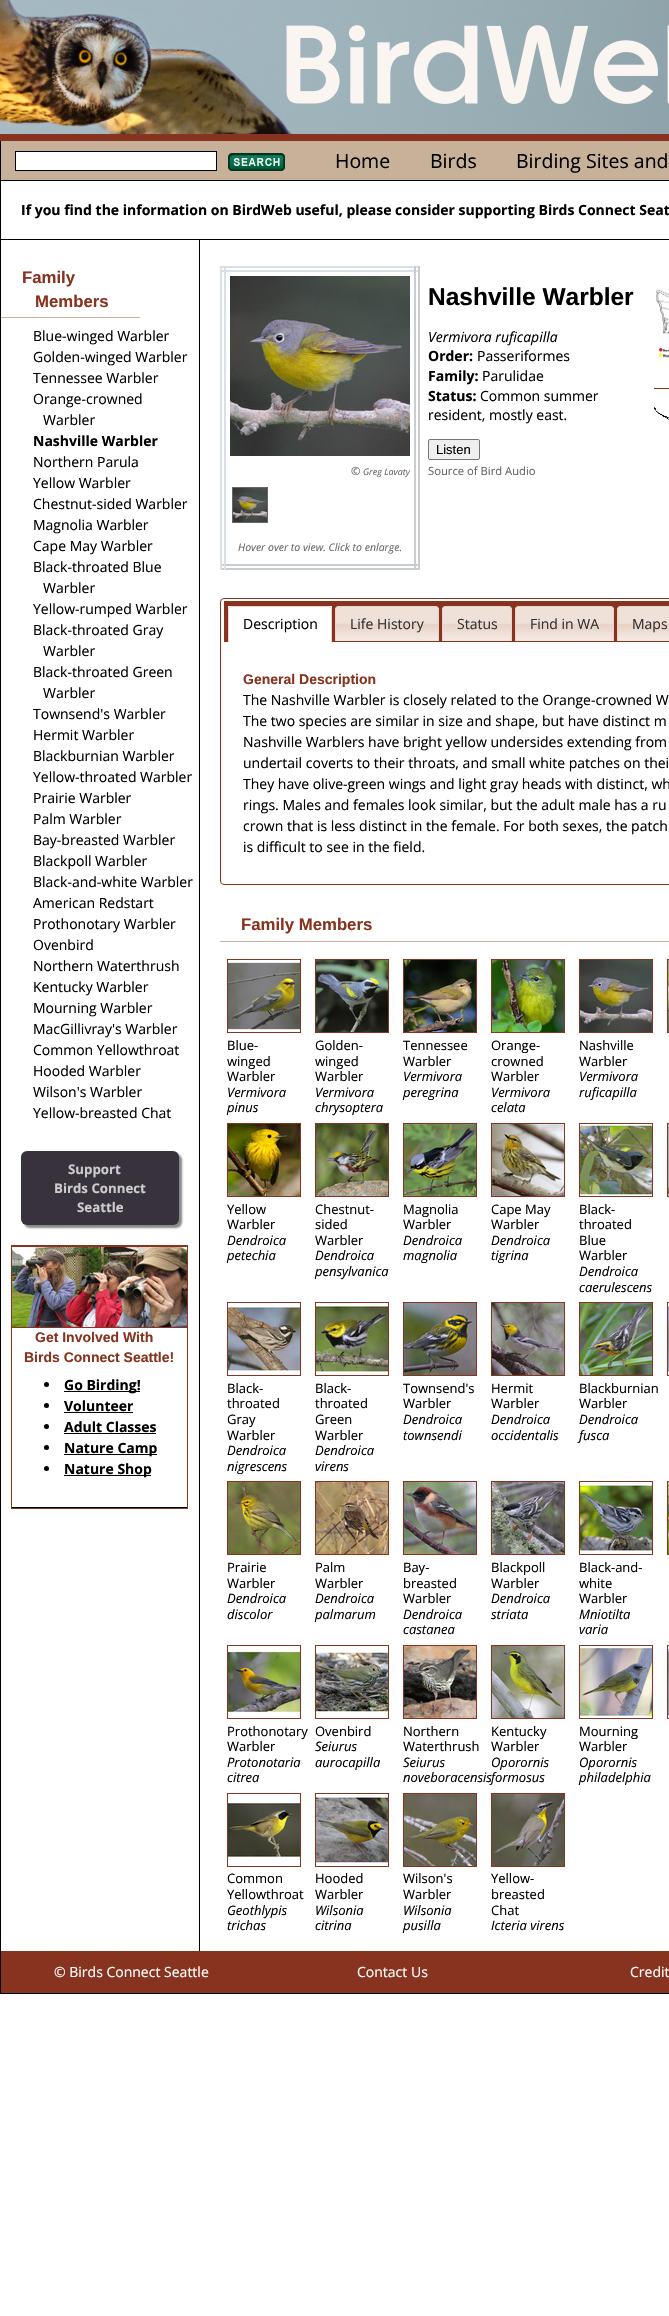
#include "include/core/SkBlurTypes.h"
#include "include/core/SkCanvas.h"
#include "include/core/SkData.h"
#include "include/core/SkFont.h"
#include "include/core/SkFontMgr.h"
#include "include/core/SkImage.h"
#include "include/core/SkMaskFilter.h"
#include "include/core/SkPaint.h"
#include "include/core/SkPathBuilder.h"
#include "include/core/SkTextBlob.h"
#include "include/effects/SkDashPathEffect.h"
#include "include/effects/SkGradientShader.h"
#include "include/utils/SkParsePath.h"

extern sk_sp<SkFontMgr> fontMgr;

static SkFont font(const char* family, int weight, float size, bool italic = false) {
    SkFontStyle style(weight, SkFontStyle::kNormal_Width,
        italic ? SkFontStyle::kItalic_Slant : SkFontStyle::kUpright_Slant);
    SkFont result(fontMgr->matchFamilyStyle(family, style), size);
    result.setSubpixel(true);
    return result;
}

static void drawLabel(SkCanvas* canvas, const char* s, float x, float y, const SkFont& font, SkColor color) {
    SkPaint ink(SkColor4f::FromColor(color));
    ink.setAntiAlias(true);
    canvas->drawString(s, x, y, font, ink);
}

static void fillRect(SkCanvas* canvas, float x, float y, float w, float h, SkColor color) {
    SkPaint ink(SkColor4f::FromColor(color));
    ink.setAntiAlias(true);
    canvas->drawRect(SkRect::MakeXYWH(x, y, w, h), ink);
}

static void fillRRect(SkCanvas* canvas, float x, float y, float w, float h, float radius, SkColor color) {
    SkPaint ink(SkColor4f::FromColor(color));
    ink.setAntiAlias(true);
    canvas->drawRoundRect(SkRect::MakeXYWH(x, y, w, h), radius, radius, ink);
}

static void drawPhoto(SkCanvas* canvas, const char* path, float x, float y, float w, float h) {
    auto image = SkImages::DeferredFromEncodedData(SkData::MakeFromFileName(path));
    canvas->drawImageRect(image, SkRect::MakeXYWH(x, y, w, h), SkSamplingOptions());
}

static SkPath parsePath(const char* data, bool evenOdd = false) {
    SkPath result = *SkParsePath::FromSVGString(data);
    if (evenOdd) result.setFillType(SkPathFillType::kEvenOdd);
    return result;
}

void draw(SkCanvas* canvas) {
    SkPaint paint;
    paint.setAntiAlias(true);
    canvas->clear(0xFFFFFFFF);
    fillRect(canvas, 0, 134, 669, 7, 0xFF87331F);
    drawPhoto(canvas, "assets/img1.png", 0, 0, 669, 134);
    fillRect(canvas, 0, 141, 1, 1853, 0xFF000000);
    fillRect(canvas, 1, 141, 668, 39, 0xFFC7B199);
    paint.setColor(0xFFFFFFFF);
    canvas->drawRect(SkRect::MakeXYWH(15.5f, 151.5f, 201, 19), paint);
    paint.setStroke(true);
    paint.setStrokeWidth(1);
    paint.setColor(0xFF000000);
    canvas->drawRect(SkRect::MakeXYWH(15.5f, 151.5f, 201, 19), paint);
    drawPhoto(canvas, "assets/img2.png", 228, 153, 57, 18);
    SkFont font1 = font("Open Sans", 400, 19.5f);
    drawLabel(canvas, "Home", 335, 168, font1, 0xFF000000);
    drawLabel(canvas, "Birds", 430, 168, font1, 0xFF000000);
    drawLabel(canvas, "Birding Sites and", 516, 168, font1, 0xFF000000);
    fillRect(canvas, 1, 180, 668, 1, 0xFF000000);
    fillRect(canvas, 1, 239, 668, 1, 0xFF000000);
    SkFont font2 = font("Open Sans", 700, 14);
    drawLabel(canvas, "If you find the information on BirdWeb useful, please consider supporting Birds Connect Seat", 21, 215, font2, 0xFF000000);
    fillRect(canvas, 1, 317, 139, 1, 0xFFC7B299);
    SkFont font3 = font("Liberation Sans", 700, 16.75f);
    drawLabel(canvas, "Family", 22, 283, font3, 0xFF87331F);
    drawLabel(canvas, "Members", 35, 307, font3, 0xFF87331F);
    SkFont font4 = font("Open Sans", 400, 14);
    drawLabel(canvas, "Blue-winged Warbler", 33, 341, font4, 0xFF000000);
    drawLabel(canvas, "Golden-winged Warbler", 33, 362, font4, 0xFF000000);
    drawLabel(canvas, "Tennessee Warbler", 33, 383, font4, 0xFF000000);
    drawLabel(canvas, "Orange-crowned", 33, 404, font4, 0xFF000000);
    drawLabel(canvas, "Warbler", 43, 425, font4, 0xFF000000);
    drawLabel(canvas, "Nashville Warbler", 33, 446, font2, 0xFF000000);
    drawLabel(canvas, "Northern Parula", 33, 467, font4, 0xFF000000);
    drawLabel(canvas, "Yellow Warbler", 33, 488, font4, 0xFF000000);
    drawLabel(canvas, "Chestnut-sided Warbler", 33, 509, font4, 0xFF000000);
    drawLabel(canvas, "Magnolia Warbler", 33, 530, font4, 0xFF000000);
    drawLabel(canvas, "Cape May Warbler", 33, 551, font4, 0xFF000000);
    drawLabel(canvas, "Black-throated Blue", 33, 572, font4, 0xFF000000);
    drawLabel(canvas, "Warbler", 43, 593, font4, 0xFF000000);
    drawLabel(canvas, "Yellow-rumped Warbler", 33, 614, font4, 0xFF000000);
    drawLabel(canvas, "Black-throated Gray", 33, 635, font4, 0xFF000000);
    drawLabel(canvas, "Warbler", 43, 656, font4, 0xFF000000);
    drawLabel(canvas, "Black-throated Green", 33, 677, font4, 0xFF000000);
    drawLabel(canvas, "Warbler", 43, 698, font4, 0xFF000000);
    drawLabel(canvas, "Townsend's Warbler", 33, 719, font4, 0xFF000000);
    drawLabel(canvas, "Hermit Warbler", 33, 740, font4, 0xFF000000);
    drawLabel(canvas, "Blackburnian Warbler", 33, 761, font4, 0xFF000000);
    drawLabel(canvas, "Yellow-throated Warbler", 33, 782, font4, 0xFF000000);
    drawLabel(canvas, "Prairie Warbler", 33, 803, font4, 0xFF000000);
    drawLabel(canvas, "Palm Warbler", 33, 824, font4, 0xFF000000);
    drawLabel(canvas, "Bay-breasted Warbler", 33, 845, font4, 0xFF000000);
    drawLabel(canvas, "Blackpoll Warbler", 33, 866, font4, 0xFF000000);
    drawLabel(canvas, "Black-and-white Warbler", 33, 887, font4, 0xFF000000);
    drawLabel(canvas, "American Redstart", 33, 908, font4, 0xFF000000);
    drawLabel(canvas, "Prothonotary Warbler", 33, 929, font4, 0xFF000000);
    drawLabel(canvas, "Ovenbird", 33, 950, font4, 0xFF000000);
    drawLabel(canvas, "Northern Waterthrush", 33, 971, font4, 0xFF000000);
    drawLabel(canvas, "Kentucky Warbler", 33, 992, font4, 0xFF000000);
    drawLabel(canvas, "Mourning Warbler", 33, 1013, font4, 0xFF000000);
    drawLabel(canvas, "MacGillivray's Warbler", 33, 1034, font4, 0xFF000000);
    drawLabel(canvas, "Common Yellowthroat", 33, 1055, font4, 0xFF000000);
    drawLabel(canvas, "Hooded Warbler", 33, 1076, font4, 0xFF000000);
    drawLabel(canvas, "Wilson's Warbler", 33, 1097, font4, 0xFF000000);
    drawLabel(canvas, "Yellow-breasted Chat", 33, 1118, font4, 0xFF000000);
    paint.setStroke(false);
    paint.setColor(0xFF888888);
    paint.setMaskFilter(SkMaskFilter::MakeBlur(kNormal_SkBlurStyle, 1));
    canvas->drawRoundRect(SkRect::MakeXYWH(24, 1154, 158, 74), 6, 6, paint);
    paint.setMaskFilter(nullptr);
    fillRRect(canvas, 21, 1151, 158, 74, 6, 0xFF38323D);
    SkFont font5 = font("Open Sans", 700, 13.25f);
    drawLabel(canvas, "Support", 68, 1174, font5, 0xFFCCCCCC);
    drawLabel(canvas, "Birds Connect", 54, 1193, font5, 0xFFCCCCCC);
    drawLabel(canvas, "Seattle", 77, 1212, font5, 0xFFCCCCCC);
    paint.setStroke(true);
    paint.setColor(0xFF893320);
    canvas->drawRect(SkRect::MakeXYWH(11.5f, 1245.5f, 176, 263), paint);
    fillRect(canvas, 12, 1246, 175, 1, 0xFF893320);
    fillRect(canvas, 12, 1327, 175, 1, 0xFF893320);
    drawPhoto(canvas, "assets/img3.png", 12, 1247, 175, 80);
    SkFont font6 = font("Liberation Sans", 700, 14);
    drawLabel(canvas, "Get Involved With", 35, 1342, font6, 0xFF87331F);
    drawLabel(canvas, "Birds Connect Seattle!", 24, 1362, font6, 0xFF87331F);
    paint.setStroke(false);
    paint.setColor(0xFF000000);
    canvas->drawCircle(46.5f, 1384.5f, 2.5f, paint);
    fillRect(canvas, 64, 1391, 76, 1, 0xFF000000);
    drawLabel(canvas, "Go Birding!", 64, 1390, font2, 0xFF000000);
    canvas->drawCircle(46.5f, 1405.5f, 2.5f, paint);
    drawLabel(canvas, "Volunteer", 64, 1411, font2, 0xFF000000);
    fillRect(canvas, 64, 1412, 69, 1, 0xFF000000);
    canvas->drawCircle(46.5f, 1426.5f, 2.5f, paint);
    drawLabel(canvas, "Adult Classes", 64, 1432, font2, 0xFF000000);
    fillRect(canvas, 64, 1433, 92, 1, 0xFF000000);
    canvas->drawCircle(46.5f, 1447.5f, 2.5f, paint);
    fillRect(canvas, 64, 1454, 93, 1, 0xFF000000);
    drawLabel(canvas, "Nature Camp", 64, 1453, font2, 0xFF000000);
    canvas->drawCircle(46.5f, 1468.5f, 2.5f, paint);
    fillRect(canvas, 64, 1475, 87, 1, 0xFF000000);
    drawLabel(canvas, "Nature Shop", 64, 1474, font2, 0xFF000000);
    fillRect(canvas, 12, 1507, 175, 1, 0xFF000000);
    fillRect(canvas, 199, 240, 1, 1711, 0xFF000000);
    SkFont font7 = font("Liberation Sans", 700, 24.5f);
    drawLabel(canvas, "Nashville Warbler", 428, 305, font7, 0xFF000000);
    SkFont font8 = font("Open Sans", 400, 14, true);
    drawLabel(canvas, "Vermivora ruficapilla", 428, 342, font8, 0xFF000000);
    drawLabel(canvas, "Order:", 428, 361, font2, 0xFF000000);
    drawLabel(canvas, "Passeriformes", 477, 361, font4, 0xFF000000);
    drawLabel(canvas, "Family:", 428, 381, font2, 0xFF000000);
    drawLabel(canvas, "Parulidae", 482, 381, font4, 0xFF000000);
    drawLabel(canvas, "Status:", 428, 401, font2, 0xFF000000);
    drawLabel(canvas, "Common summer", 480, 401, font4, 0xFF000000);
    drawLabel(canvas, "resident, mostly east.", 428, 420, font4, 0xFF000000);
    paint.setColor(0xFFEFEFEF);
    canvas->drawRoundRect(SkRect::MakeXYWH(428.5f, 439.5f, 51, 20), 1.5f, 1.5f, paint);
    paint.setStroke(true);
    paint.setColor(0xFF767676);
    canvas->drawRoundRect(SkRect::MakeXYWH(428.5f, 439.5f, 51, 20), 1.5f, 1.5f, paint);
    SkFont font9 = font("Liberation Sans", 400, 13);
    drawLabel(canvas, "Listen", 436, 454, font9, 0xFF000000);
    SkFont font10 = font("Open Sans", 400, 11.25f);
    drawLabel(canvas, "Source of Bird Audio", 428, 475, font10, 0xFF666666);
    drawPhoto(canvas, "assets/img4.png", 656, 289, 13, 69);
    fillRect(canvas, 654, 388, 15, 1, 0xFF87331F);
    drawPhoto(canvas, "assets/img5.png", 654, 407, 15, 13);
    fillRect(canvas, 220, 266, 200, 2, 0xFFD9E0E6);
    fillRect(canvas, 220, 270, 200, 2, 0xFFD9E0E6);
    fillRect(canvas, 414, 266, 2, 304, 0xFFC8CDD2);
    fillRect(canvas, 418, 266, 2, 304, 0xFFC8CDD2);
    fillRect(canvas, 220, 564, 200, 2, 0xFFC8CDD2);
    fillRect(canvas, 220, 568, 200, 2, 0xFFC8CDD2);
    fillRect(canvas, 220, 266, 2, 304, 0xFFD9E0E6);
    fillRect(canvas, 224, 266, 2, 304, 0xFFD9E0E6);
    drawPhoto(canvas, "assets/img6.png", 230, 276, 180, 180);
    SkFont font11 = font("Open Sans", 400, 11.25f, true);
    drawLabel(canvas, "©", 351, 475, font11, 0xFF666666);
    SkFont font12 = font("Open Sans", 400, 9, true);
    drawLabel(canvas, "Greg Lavaty", 363, 475, font12, 0xFF666666);
    paint.setColor(0xFF666666);
    canvas->drawRect(SkRect::MakeXYWH(232.5f, 487.5f, 35, 35), paint);
    drawPhoto(canvas, "assets/img7.png", 233, 488, 34, 34);
    SkFont font13 = font("Open Sans", 400, 10.5f, true);
    drawLabel(canvas, "Hover over to view. Click to enlarge.", 238, 551, font13, 0xFF666666);
    paint.setColor(0xFF87331F);
    canvas->drawRoundRect(SkRect::MakeXYWH(220.5f, 598.5f, 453, 286), 3.5f, 3.5f, paint);
    fillRect(canvas, 224, 601, 445, 41, 0xFF87331F);
    fillRect(canvas, 229, 610, 102, 32, 0xFFFFFFFF);
    fillRect(canvas, 228, 606, 104, 4, 0xFFFEFEFE);
    paint.setStroke(false);
    paint.setColor(0xFFE9D4C9);
    canvas->drawPath(parsePath("M232 606H328C330 606 332 608 332 610V642H228V610C228 608 230 606 232 606ZM232 607H328C330 607 331 608 331 610V642H229V610C229 608 230 607 232 607Z", true), paint);
    drawLabel(canvas, "Description", 243, 629, font4, 0xFF000000);
    drawPhoto(canvas, "assets/img8.png", 335, 606, 104, 35);
    canvas->drawPath(parsePath("M339 606H435C437 606 439 608 439 610V641H335V610C335 608 337 606 339 606ZM339 607H435C437 607 438 608 438 610V641H336V610C336 608 337 607 339 607Z", true), paint);
    drawLabel(canvas, "Life History", 350, 629, font4, 0xFF333333);
    drawPhoto(canvas, "assets/img9.png", 442, 606, 70, 35);
    canvas->drawPath(parsePath("M446 606H508C510 606 512 608 512 610V641H442V610C442 608 444 606 446 606ZM446 607H508C510 607 511 608 511 610V641H443V610C443 608 444 607 446 607Z", true), paint);
    drawLabel(canvas, "Status", 457, 629, font4, 0xFF333333);
    drawPhoto(canvas, "assets/img10.png", 515, 606, 99, 35);
    canvas->drawPath(parsePath("M519 606H610C612 606 614 608 614 610V641H515V610C515 608 517 606 519 606ZM519 607H610C612 607 613 608 613 610V641H516V610C516 608 517 607 519 607Z", true), paint);
    drawLabel(canvas, "Find in WA", 530, 629, font4, 0xFF333333);
    drawPhoto(canvas, "assets/img11.png", 617, 606, 52, 35);
    canvas->drawPath(parsePath("M621 606H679C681 606 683 608 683 610V641H617V610C617 608 619 606 621 606ZM621 607H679C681 607 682 608 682 610V641H618V610C618 608 619 607 621 607Z", true), paint);
    drawLabel(canvas, "Maps", 632, 629, font4, 0xFF333333);
    drawLabel(canvas, "General Description", 243, 684, font6, 0xFF87331F);
    drawLabel(canvas, "The Nashville Warbler is closely related to the Orange-crowned W", 243, 705, font4, 0xFF000000);
    drawLabel(canvas, "The two species are similar in size and shape, but have distinct m", 243, 726, font4, 0xFF000000);
    drawLabel(canvas, "Nashville Warblers have bright yellow undersides extending from", 243, 747, font4, 0xFF000000);
    drawLabel(canvas, "undertail coverts to their throats, and small white patches on thei", 243, 768, font4, 0xFF000000);
    drawLabel(canvas, "They have olive-green wings and light gray heads with distinct, wh", 243, 789, font4, 0xFF000000);
    drawLabel(canvas, "rings. Males and females look similar, but the adult male has a ru", 243, 810, font4, 0xFF000000);
    drawLabel(canvas, "crown that is less distinct in the female. For both sexes, the patch", 243, 831, font4, 0xFF000000);
    drawLabel(canvas, "is difficult to see in the field.", 243, 852, font4, 0xFF000000);
    fillRect(canvas, 220, 941, 449, 1, 0xFFC7B299);
    drawLabel(canvas, "Family Members", 241, 930, font3, 0xFF87331F);
    paint.setStroke(true);
    paint.setColor(0xFF893320);
    canvas->drawRect(SkRect::MakeXYWH(667.5f, 959.5f, 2, 73), paint);
    drawPhoto(canvas, "assets/img12.png", 668, 960, 1, 72);
    canvas->drawRect(SkRect::MakeXYWH(227.5f, 959.5f, 73, 73), paint);
    drawPhoto(canvas, "assets/img13.png", 228, 962, 72, 68);
    SkFont font14 = font("Open Sans", 400, 13);
    drawLabel(canvas, "Blue-", 227, 1050, font14, 0xFF000000);
    drawLabel(canvas, "winged", 227, 1066, font14, 0xFF000000);
    drawLabel(canvas, "Warbler", 227, 1081, font14, 0xFF000000);
    SkFont font15 = font("Open Sans", 400, 13, true);
    drawLabel(canvas, "Vermivora", 227, 1097, font15, 0xFF000000);
    drawLabel(canvas, "pinus", 227, 1112, font15, 0xFF000000);
    canvas->drawRect(SkRect::MakeXYWH(315.5f, 959.5f, 73, 73), paint);
    drawPhoto(canvas, "assets/img14.png", 316, 960, 72, 72);
    drawLabel(canvas, "Golden-", 315, 1050, font14, 0xFF000000);
    drawLabel(canvas, "winged", 315, 1066, font14, 0xFF000000);
    drawLabel(canvas, "Warbler", 315, 1081, font14, 0xFF000000);
    drawLabel(canvas, "Vermivora", 315, 1097, font15, 0xFF000000);
    drawLabel(canvas, "chrysoptera", 315, 1112, font15, 0xFF000000);
    canvas->drawRect(SkRect::MakeXYWH(403.5f, 959.5f, 73, 73), paint);
    drawPhoto(canvas, "assets/img15.png", 404, 960, 72, 72);
    drawLabel(canvas, "Tennessee", 403, 1050, font14, 0xFF000000);
    drawLabel(canvas, "Warbler", 403, 1066, font14, 0xFF000000);
    drawLabel(canvas, "Vermivora", 403, 1081, font15, 0xFF000000);
    drawLabel(canvas, "peregrina", 403, 1097, font15, 0xFF000000);
    canvas->drawRect(SkRect::MakeXYWH(491.5f, 959.5f, 73, 73), paint);
    drawPhoto(canvas, "assets/img16.png", 492, 960, 72, 72);
    drawLabel(canvas, "Orange-", 491, 1050, font14, 0xFF000000);
    drawLabel(canvas, "crowned", 491, 1066, font14, 0xFF000000);
    drawLabel(canvas, "Warbler", 491, 1081, font14, 0xFF000000);
    drawLabel(canvas, "Vermivora", 491, 1097, font15, 0xFF000000);
    drawLabel(canvas, "celata", 491, 1112, font15, 0xFF000000);
    canvas->drawRect(SkRect::MakeXYWH(579.5f, 959.5f, 73, 73), paint);
    drawPhoto(canvas, "assets/img17.png", 580, 960, 72, 72);
    drawLabel(canvas, "Nashville", 579, 1050, font14, 0xFF000000);
    drawLabel(canvas, "Warbler", 579, 1066, font14, 0xFF000000);
    drawLabel(canvas, "Vermivora", 579, 1081, font15, 0xFF000000);
    drawLabel(canvas, "ruficapilla", 579, 1097, font15, 0xFF000000);
    canvas->drawRect(SkRect::MakeXYWH(667.5f, 1123.5f, 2, 73), paint);
    drawPhoto(canvas, "assets/img18.png", 668, 1124, 1, 72);
    canvas->drawRect(SkRect::MakeXYWH(227.5f, 1123.5f, 73, 73), paint);
    drawPhoto(canvas, "assets/img19.png", 228, 1124, 72, 72);
    drawLabel(canvas, "Yellow", 227, 1214, font14, 0xFF000000);
    drawLabel(canvas, "Warbler", 227, 1229, font14, 0xFF000000);
    drawLabel(canvas, "Dendroica", 227, 1245, font15, 0xFF000000);
    drawLabel(canvas, "petechia", 227, 1260, font15, 0xFF000000);
    canvas->drawRect(SkRect::MakeXYWH(315.5f, 1123.5f, 73, 73), paint);
    drawPhoto(canvas, "assets/img20.png", 316, 1124, 72, 72);
    drawLabel(canvas, "Chestnut-", 315, 1214, font14, 0xFF000000);
    drawLabel(canvas, "sided", 315, 1229, font14, 0xFF000000);
    drawLabel(canvas, "Warbler", 315, 1245, font14, 0xFF000000);
    drawLabel(canvas, "Dendroica", 315, 1260, font15, 0xFF000000);
    drawLabel(canvas, "pensylvanica", 315, 1276, font15, 0xFF000000);
    canvas->drawRect(SkRect::MakeXYWH(403.5f, 1123.5f, 73, 73), paint);
    drawPhoto(canvas, "assets/img21.png", 404, 1124, 72, 72);
    drawLabel(canvas, "Magnolia", 403, 1214, font14, 0xFF000000);
    drawLabel(canvas, "Warbler", 403, 1229, font14, 0xFF000000);
    drawLabel(canvas, "Dendroica", 403, 1245, font15, 0xFF000000);
    drawLabel(canvas, "magnolia", 403, 1260, font15, 0xFF000000);
    canvas->drawRect(SkRect::MakeXYWH(491.5f, 1123.5f, 73, 73), paint);
    drawPhoto(canvas, "assets/img22.png", 492, 1124, 72, 72);
    drawLabel(canvas, "Cape May", 491, 1214, font14, 0xFF000000);
    drawLabel(canvas, "Warbler", 491, 1229, font14, 0xFF000000);
    drawLabel(canvas, "Dendroica", 491, 1245, font15, 0xFF000000);
    drawLabel(canvas, "tigrina", 491, 1260, font15, 0xFF000000);
    canvas->drawRect(SkRect::MakeXYWH(579.5f, 1123.5f, 73, 73), paint);
    drawPhoto(canvas, "assets/img23.png", 580, 1125, 72, 70);
    drawLabel(canvas, "Black-", 579, 1214, font14, 0xFF000000);
    drawLabel(canvas, "throated", 579, 1229, font14, 0xFF000000);
    drawLabel(canvas, "Blue", 579, 1245, font14, 0xFF000000);
    drawLabel(canvas, "Warbler", 579, 1260, font14, 0xFF000000);
    drawLabel(canvas, "Dendroica", 579, 1276, font15, 0xFF000000);
    drawLabel(canvas, "caerulescens", 579, 1292, font15, 0xFF000000);
    canvas->drawRect(SkRect::MakeXYWH(667.5f, 1302.5f, 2, 73), paint);
    drawPhoto(canvas, "assets/img24.png", 668, 1306, 1, 66);
    canvas->drawRect(SkRect::MakeXYWH(227.5f, 1302.5f, 73, 73), paint);
    drawPhoto(canvas, "assets/img25.png", 228, 1307, 72, 66);
    drawLabel(canvas, "Black-", 227, 1393, font14, 0xFF000000);
    drawLabel(canvas, "throated", 227, 1408, font14, 0xFF000000);
    drawLabel(canvas, "Gray", 227, 1424, font14, 0xFF000000);
    drawLabel(canvas, "Warbler", 227, 1440, font14, 0xFF000000);
    drawLabel(canvas, "Dendroica", 227, 1455, font15, 0xFF000000);
    drawLabel(canvas, "nigrescens", 227, 1471, font15, 0xFF000000);
    canvas->drawRect(SkRect::MakeXYWH(315.5f, 1302.5f, 73, 73), paint);
    drawPhoto(canvas, "assets/img26.png", 316, 1304, 72, 70);
    drawLabel(canvas, "Black-", 315, 1393, font14, 0xFF000000);
    drawLabel(canvas, "throated", 315, 1408, font14, 0xFF000000);
    drawLabel(canvas, "Green", 315, 1424, font14, 0xFF000000);
    drawLabel(canvas, "Warbler", 315, 1440, font14, 0xFF000000);
    drawLabel(canvas, "Dendroica", 315, 1455, font15, 0xFF000000);
    drawLabel(canvas, "virens", 315, 1471, font15, 0xFF000000);
    canvas->drawRect(SkRect::MakeXYWH(403.5f, 1302.5f, 73, 73), paint);
    drawPhoto(canvas, "assets/img27.png", 404, 1303, 72, 72);
    drawLabel(canvas, "Townsend's", 403, 1393, font14, 0xFF000000);
    drawLabel(canvas, "Warbler", 403, 1408, font14, 0xFF000000);
    drawLabel(canvas, "Dendroica", 403, 1424, font15, 0xFF000000);
    drawLabel(canvas, "townsendi", 403, 1440, font15, 0xFF000000);
    canvas->drawRect(SkRect::MakeXYWH(491.5f, 1302.5f, 73, 73), paint);
    drawPhoto(canvas, "assets/img28.png", 492, 1303, 72, 72);
    drawLabel(canvas, "Hermit", 491, 1393, font14, 0xFF000000);
    drawLabel(canvas, "Warbler", 491, 1408, font14, 0xFF000000);
    drawLabel(canvas, "Dendroica", 491, 1424, font15, 0xFF000000);
    drawLabel(canvas, "occidentalis", 491, 1440, font15, 0xFF000000);
    canvas->drawRect(SkRect::MakeXYWH(579.5f, 1302.5f, 73, 73), paint);
    drawPhoto(canvas, "assets/img29.png", 580, 1303, 72, 72);
    drawLabel(canvas, "Blackburnian", 579, 1393, font14, 0xFF000000);
    drawLabel(canvas, "Warbler", 579, 1408, font14, 0xFF000000);
    drawLabel(canvas, "Dendroica", 579, 1424, font15, 0xFF000000);
    drawLabel(canvas, "fusca", 579, 1440, font15, 0xFF000000);
    canvas->drawRect(SkRect::MakeXYWH(667.5f, 1481.5f, 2, 73), paint);
    drawPhoto(canvas, "assets/img30.png", 668, 1482, 1, 72);
    canvas->drawRect(SkRect::MakeXYWH(227.5f, 1481.5f, 73, 73), paint);
    drawPhoto(canvas, "assets/img31.png", 228, 1482, 72, 72);
    drawLabel(canvas, "Prairie", 227, 1572, font14, 0xFF000000);
    drawLabel(canvas, "Warbler", 227, 1588, font14, 0xFF000000);
    drawLabel(canvas, "Dendroica", 227, 1603, font15, 0xFF000000);
    drawLabel(canvas, "discolor", 227, 1619, font15, 0xFF000000);
    canvas->drawRect(SkRect::MakeXYWH(315.5f, 1481.5f, 73, 73), paint);
    drawPhoto(canvas, "assets/img32.png", 316, 1482, 72, 72);
    drawLabel(canvas, "Palm", 315, 1572, font14, 0xFF000000);
    drawLabel(canvas, "Warbler", 315, 1588, font14, 0xFF000000);
    drawLabel(canvas, "Dendroica", 315, 1603, font15, 0xFF000000);
    drawLabel(canvas, "palmarum", 315, 1619, font15, 0xFF000000);
    canvas->drawRect(SkRect::MakeXYWH(403.5f, 1481.5f, 73, 73), paint);
    drawPhoto(canvas, "assets/img33.png", 404, 1482, 72, 72);
    drawLabel(canvas, "Bay-", 403, 1572, font14, 0xFF000000);
    drawLabel(canvas, "breasted", 403, 1588, font14, 0xFF000000);
    drawLabel(canvas, "Warbler", 403, 1603, font14, 0xFF000000);
    drawLabel(canvas, "Dendroica", 403, 1619, font15, 0xFF000000);
    drawLabel(canvas, "castanea", 403, 1634, font15, 0xFF000000);
    canvas->drawRect(SkRect::MakeXYWH(491.5f, 1481.5f, 73, 73), paint);
    drawPhoto(canvas, "assets/img34.png", 492, 1482, 72, 72);
    drawLabel(canvas, "Blackpoll", 491, 1572, font14, 0xFF000000);
    drawLabel(canvas, "Warbler", 491, 1588, font14, 0xFF000000);
    drawLabel(canvas, "Dendroica", 491, 1603, font15, 0xFF000000);
    drawLabel(canvas, "striata", 491, 1619, font15, 0xFF000000);
    canvas->drawRect(SkRect::MakeXYWH(579.5f, 1481.5f, 73, 73), paint);
    drawPhoto(canvas, "assets/img35.png", 580, 1483, 72, 70);
    drawLabel(canvas, "Black-and-", 579, 1572, font14, 0xFF000000);
    drawLabel(canvas, "white", 579, 1588, font14, 0xFF000000);
    drawLabel(canvas, "Warbler", 579, 1603, font14, 0xFF000000);
    drawLabel(canvas, "Mniotilta", 579, 1619, font15, 0xFF000000);
    drawLabel(canvas, "varia", 579, 1634, font15, 0xFF000000);
    canvas->drawRect(SkRect::MakeXYWH(667.5f, 1645.5f, 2, 73), paint);
    drawPhoto(canvas, "assets/img36.png", 668, 1648, 1, 68);
    canvas->drawRect(SkRect::MakeXYWH(227.5f, 1645.5f, 73, 73), paint);
    drawPhoto(canvas, "assets/img37.png", 228, 1651, 72, 61);
    drawLabel(canvas, "Prothonotary", 227, 1736, font14, 0xFF000000);
    drawLabel(canvas, "Warbler", 227, 1751, font14, 0xFF000000);
    drawLabel(canvas, "Protonotaria", 227, 1767, font15, 0xFF000000);
    drawLabel(canvas, "citrea", 227, 1782, font15, 0xFF000000);
    canvas->drawRect(SkRect::MakeXYWH(315.5f, 1645.5f, 73, 73), paint);
    drawPhoto(canvas, "assets/img38.png", 316, 1650, 72, 64);
    drawLabel(canvas, "Ovenbird", 315, 1736, font14, 0xFF000000);
    drawLabel(canvas, "Seiurus", 315, 1751, font15, 0xFF000000);
    drawLabel(canvas, "aurocapilla", 315, 1767, font15, 0xFF000000);
    canvas->drawRect(SkRect::MakeXYWH(403.5f, 1645.5f, 73, 73), paint);
    drawPhoto(canvas, "assets/img39.png", 404, 1646, 72, 72);
    drawLabel(canvas, "Northern", 403, 1736, font14, 0xFF000000);
    drawLabel(canvas, "Waterthrush", 403, 1751, font14, 0xFF000000);
    drawLabel(canvas, "Seiurus", 403, 1767, font15, 0xFF000000);
    drawLabel(canvas, "noveboracensis", 403, 1782, font15, 0xFF000000);
    canvas->drawRect(SkRect::MakeXYWH(491.5f, 1645.5f, 73, 73), paint);
    drawPhoto(canvas, "assets/img40.png", 492, 1646, 72, 72);
    drawLabel(canvas, "Kentucky", 491, 1736, font14, 0xFF000000);
    drawLabel(canvas, "Warbler", 491, 1751, font14, 0xFF000000);
    drawLabel(canvas, "Oporornis", 491, 1767, font15, 0xFF000000);
    drawLabel(canvas, "formosus", 491, 1782, font15, 0xFF000000);
    canvas->drawRect(SkRect::MakeXYWH(579.5f, 1645.5f, 73, 73), paint);
    drawPhoto(canvas, "assets/img41.png", 580, 1648, 72, 68);
    drawLabel(canvas, "Mourning", 579, 1736, font14, 0xFF000000);
    drawLabel(canvas, "Warbler", 579, 1751, font14, 0xFF000000);
    drawLabel(canvas, "Oporornis", 579, 1767, font15, 0xFF000000);
    drawLabel(canvas, "philadelphia", 579, 1782, font15, 0xFF000000);
    canvas->drawRect(SkRect::MakeXYWH(227.5f, 1793.5f, 73, 73), paint);
    drawPhoto(canvas, "assets/img42.png", 228, 1803, 72, 54);
    drawLabel(canvas, "Common", 227, 1883, font14, 0xFF000000);
    drawLabel(canvas, "Yellowthroat", 227, 1899, font14, 0xFF000000);
    drawLabel(canvas, "Geothlypis", 227, 1915, font15, 0xFF000000);
    drawLabel(canvas, "trichas", 227, 1930, font15, 0xFF000000);
    canvas->drawRect(SkRect::MakeXYWH(315.5f, 1793.5f, 73, 73), paint);
    drawPhoto(canvas, "assets/img43.png", 316, 1795, 72, 70);
    drawLabel(canvas, "Hooded", 315, 1883, font14, 0xFF000000);
    drawLabel(canvas, "Warbler", 315, 1899, font14, 0xFF000000);
    drawLabel(canvas, "Wilsonia", 315, 1915, font15, 0xFF000000);
    drawLabel(canvas, "citrina", 315, 1930, font15, 0xFF000000);
    canvas->drawRect(SkRect::MakeXYWH(403.5f, 1793.5f, 73, 73), paint);
    drawPhoto(canvas, "assets/img44.png", 404, 1794, 72, 72);
    drawLabel(canvas, "Wilson's", 403, 1883, font14, 0xFF000000);
    drawLabel(canvas, "Warbler", 403, 1899, font14, 0xFF000000);
    drawLabel(canvas, "Wilsonia", 403, 1915, font15, 0xFF000000);
    drawLabel(canvas, "pusilla", 403, 1930, font15, 0xFF000000);
    canvas->drawRect(SkRect::MakeXYWH(491.5f, 1793.5f, 73, 73), paint);
    drawPhoto(canvas, "assets/img45.png", 492, 1794, 72, 72);
    drawLabel(canvas, "Yellow-", 491, 1883, font14, 0xFF000000);
    drawLabel(canvas, "breasted", 491, 1899, font14, 0xFF000000);
    drawLabel(canvas, "Chat", 491, 1915, font14, 0xFF000000);
    drawLabel(canvas, "Icteria virens", 491, 1930, font15, 0xFF000000);
    fillRect(canvas, 1, 1951, 668, 42, 0xFF87331F);
    fillRect(canvas, 1, 1993, 668, 1, 0xFF000000);
    drawLabel(canvas, "© Birds Connect Seattle", 54, 1977, font4, 0xFFFFFFFF);
    drawLabel(canvas, "Contact Us", 357, 1977, font4, 0xFFFFFFFF);
    drawLabel(canvas, "Credit", 630, 1977, font4, 0xFFFFFFFF);
}
